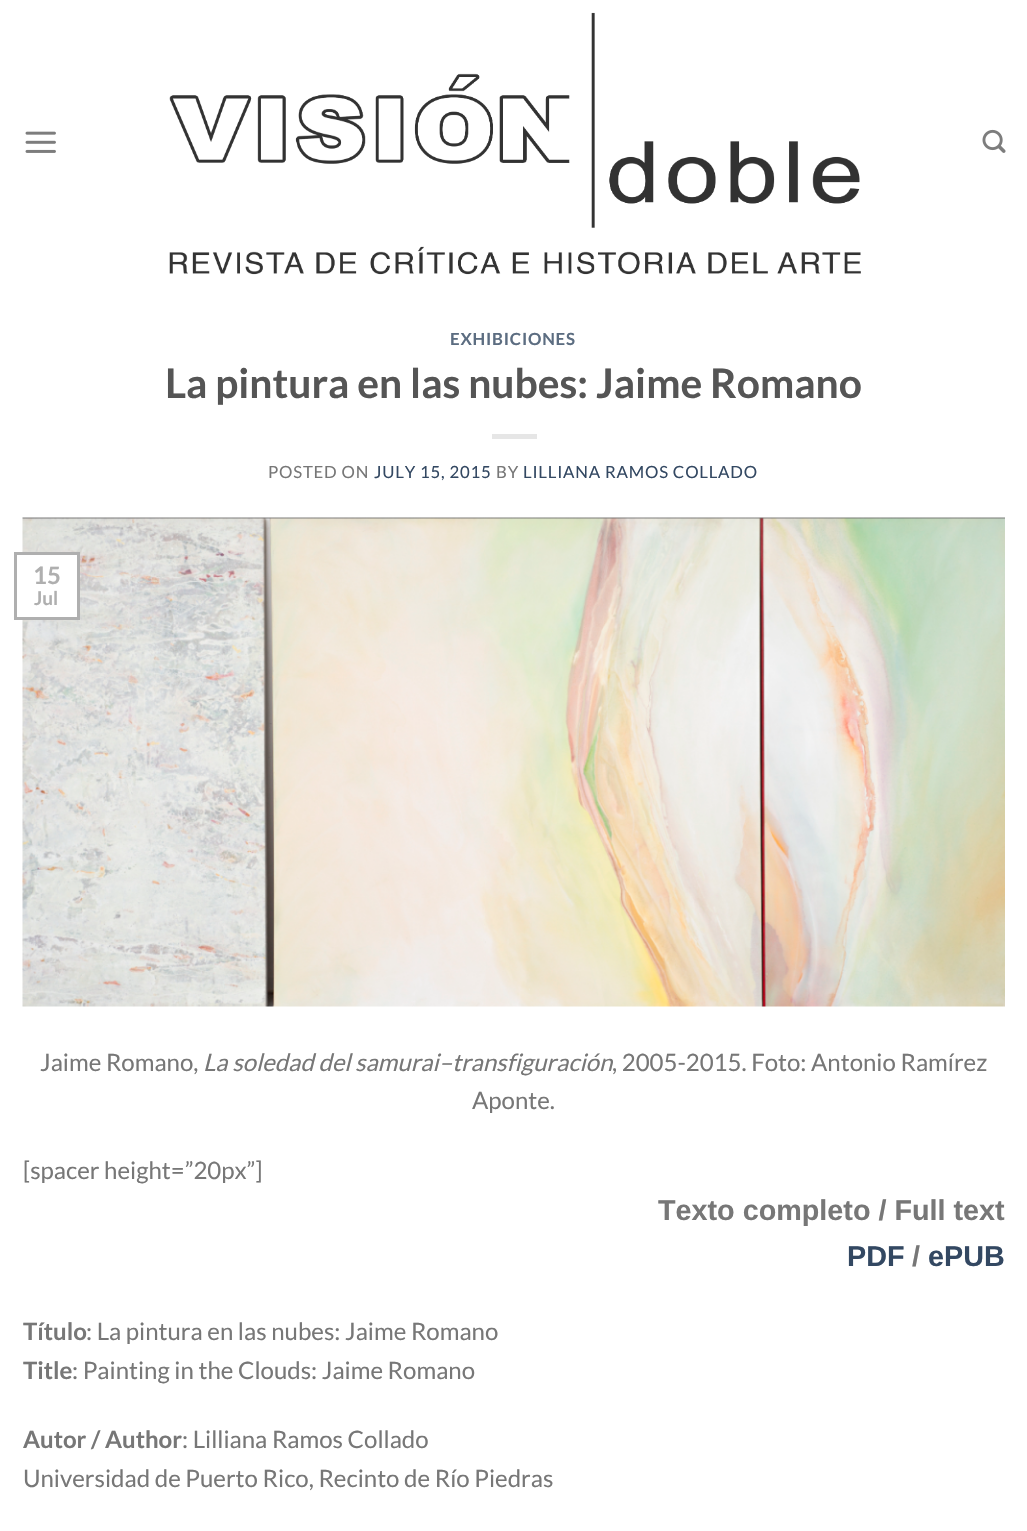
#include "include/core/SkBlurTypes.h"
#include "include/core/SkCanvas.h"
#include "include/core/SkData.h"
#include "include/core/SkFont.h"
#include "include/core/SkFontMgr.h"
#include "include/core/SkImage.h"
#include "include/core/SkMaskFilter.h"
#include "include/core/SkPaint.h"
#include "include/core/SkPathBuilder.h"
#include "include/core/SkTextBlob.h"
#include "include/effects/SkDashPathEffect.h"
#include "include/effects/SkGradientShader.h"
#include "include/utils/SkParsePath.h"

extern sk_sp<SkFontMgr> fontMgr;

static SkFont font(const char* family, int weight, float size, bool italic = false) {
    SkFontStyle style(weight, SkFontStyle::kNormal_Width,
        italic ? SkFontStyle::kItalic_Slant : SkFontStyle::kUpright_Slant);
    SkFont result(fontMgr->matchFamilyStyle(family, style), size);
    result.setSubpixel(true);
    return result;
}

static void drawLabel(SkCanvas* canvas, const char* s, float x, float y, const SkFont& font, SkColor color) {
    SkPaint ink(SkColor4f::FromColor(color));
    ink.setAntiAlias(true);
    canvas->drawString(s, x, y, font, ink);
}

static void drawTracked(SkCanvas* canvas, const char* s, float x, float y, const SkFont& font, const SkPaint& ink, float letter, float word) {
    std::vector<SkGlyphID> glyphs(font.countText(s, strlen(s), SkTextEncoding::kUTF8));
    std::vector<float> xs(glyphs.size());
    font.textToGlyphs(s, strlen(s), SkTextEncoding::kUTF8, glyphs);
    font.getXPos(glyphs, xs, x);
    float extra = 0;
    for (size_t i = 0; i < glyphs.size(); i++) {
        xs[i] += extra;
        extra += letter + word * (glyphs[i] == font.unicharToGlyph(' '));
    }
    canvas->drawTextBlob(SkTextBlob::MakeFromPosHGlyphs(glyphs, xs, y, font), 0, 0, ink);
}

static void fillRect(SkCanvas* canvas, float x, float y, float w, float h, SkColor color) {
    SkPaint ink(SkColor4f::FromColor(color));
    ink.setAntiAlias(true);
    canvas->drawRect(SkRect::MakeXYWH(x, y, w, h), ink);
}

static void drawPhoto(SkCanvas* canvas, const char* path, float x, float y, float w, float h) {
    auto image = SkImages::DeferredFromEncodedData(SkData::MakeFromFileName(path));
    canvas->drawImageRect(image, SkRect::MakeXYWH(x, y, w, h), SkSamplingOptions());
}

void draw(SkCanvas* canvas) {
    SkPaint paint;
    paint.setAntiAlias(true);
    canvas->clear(0xFFFFFFFF);
    drawPhoto(canvas, "assets/img1.png", 25, 131, 31, 22);
    drawPhoto(canvas, "assets/img2.png", 169, 12, 692, 263);
    drawPhoto(canvas, "assets/img3.png", 982, 129, 24, 24);
    SkFont font1 = font("Lato", 700, 16.75f);
    paint.setColor(0xFF5C6D81);
    drawTracked(canvas, "EXHIBICIONES", 450, 345, font1, paint, 0.8f, 0);
    SkFont font2 = font("Lato", 700, 40.75f);
    drawLabel(canvas, "La pintura en las nubes: Jaime Romano", 165, 398, font2, 0xFF555555);
    fillRect(canvas, 492, 434, 45, 5, 0xFFE6E6E6);
    SkFont font3 = font("Lato", 400, 16.75f);
    paint.setColor(0xFF777777);
    drawTracked(canvas, "POSTED ON", 268, 478, font3, paint, 0.8f, 0);
    paint.setColor(0xFF334862);
    drawTracked(canvas, "JULY 15, 2015", 374, 478, font3, paint, 0.8f, 0);
    paint.setColor(0xFF777777);
    drawTracked(canvas, "BY", 496, 478, font3, paint, 0.8f, 0);
    paint.setColor(0xFF334862);
    drawTracked(canvas, "LILLIANA RAMOS COLLADO", 523, 478, font3, paint, 0.8f, 0);
    drawPhoto(canvas, "assets/img4.png", 22, 517, 983, 490);
    fillRect(canvas, 22, 555, 55, 62, 0xFFFFFFFF);
    paint.setStroke(true);
    paint.setStrokeWidth(3);
    paint.setColor(0xFFAFAFAF);
    canvas->drawRect(SkRect::MakeXYWH(15.5f, 553.5f, 63, 65), paint);
    SkFont font4 = font("Lato", 700, 24);
    drawLabel(canvas, "15", 33, 584, font4, 0xFFAFAFAF);
    SkFont font5 = font("Lato", 700, 19);
    drawLabel(canvas, "Jul", 34, 605, font5, 0xFFAFAFAF);
    SkFont font6 = font("Lato", 400, 24);
    drawLabel(canvas, "Jaime Romano,", 40, 1071, font6, 0xFF777777);
    SkFont font7 = font("Lato", 400, 24, true);
    drawLabel(canvas, "La soledad del samurai–transfiguración", 203, 1071, font7, 0xFF777777);
    drawLabel(canvas, ", 2005-2015. Foto: Antonio Ramírez", 612, 1071, font6, 0xFF777777);
    drawLabel(canvas, "Aponte.", 472, 1109, font6, 0xFF777777);
    drawLabel(canvas, "[spacer height=”20px”]", 23, 1179, font6, 0xFF777777);
    SkFont font8 = font("Liberation Sans", 700, 28.75f);
    drawLabel(canvas, "Texto completo / Full text", 658, 1220, font8, 0xFF777777);
    drawLabel(canvas, "PDF", 847, 1266, font8, 0xFF334862);
    drawLabel(canvas, "/", 912, 1266, font8, 0xFF777777);
    drawLabel(canvas, "ePUB", 928, 1266, font8, 0xFF334862);
    drawLabel(canvas, "Título", 23, 1340, font4, 0xFF777777);
    drawLabel(canvas, ": La pintura en las nubes: Jaime Romano", 86, 1340, font6, 0xFF777777);
    drawLabel(canvas, "Title", 23, 1379, font4, 0xFF777777);
    drawLabel(canvas, ": Painting in the Clouds: Jaime Romano", 72, 1379, font6, 0xFF777777);
    drawLabel(canvas, "Autor / Author", 23, 1448, font4, 0xFF777777);
    drawLabel(canvas, ": Lilliana Ramos Collado", 182, 1448, font6, 0xFF777777);
    drawLabel(canvas, "Universidad de Puerto Rico, Recinto de Río Piedras", 23, 1487, font6, 0xFF777777);
}
